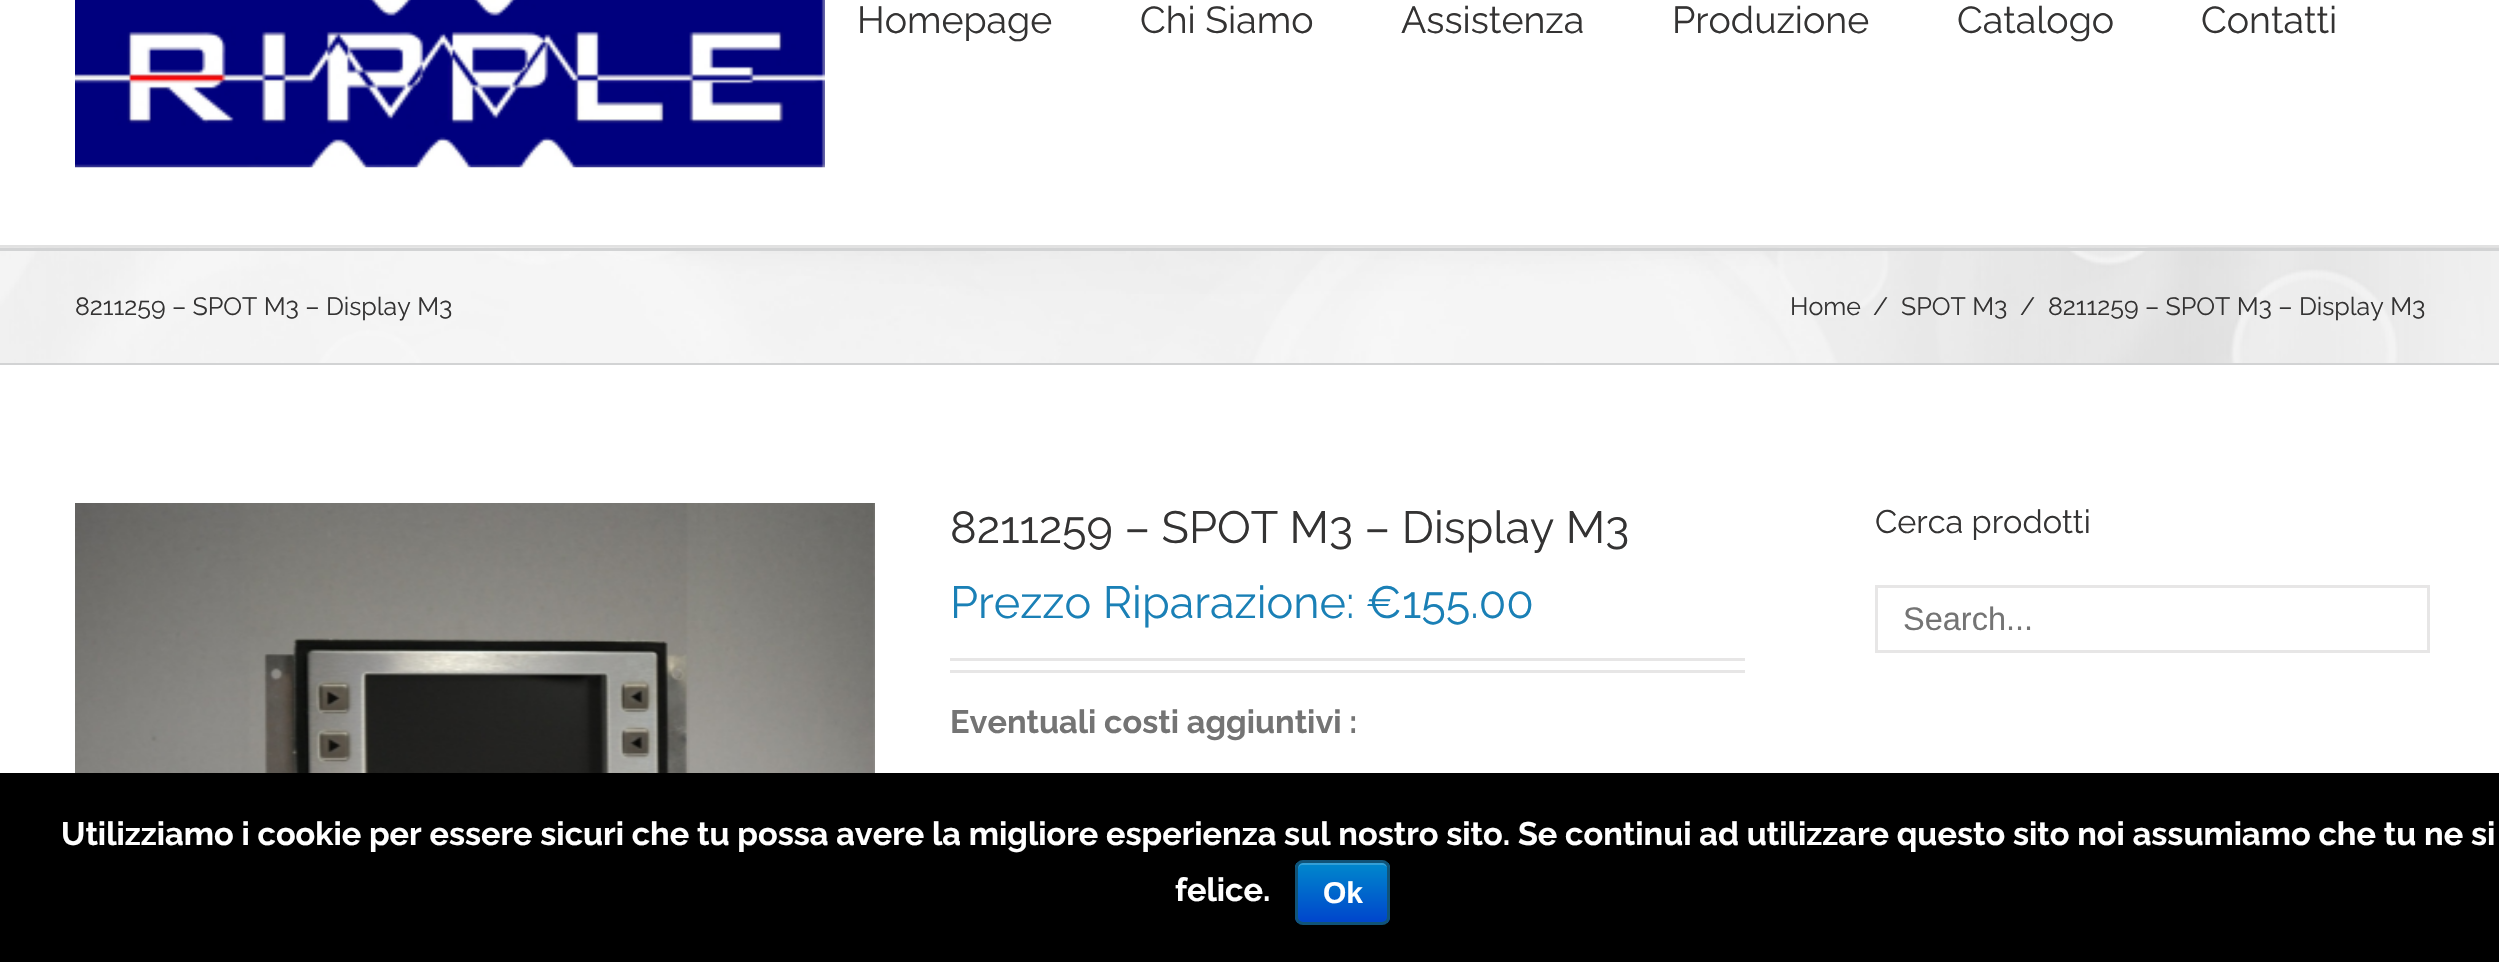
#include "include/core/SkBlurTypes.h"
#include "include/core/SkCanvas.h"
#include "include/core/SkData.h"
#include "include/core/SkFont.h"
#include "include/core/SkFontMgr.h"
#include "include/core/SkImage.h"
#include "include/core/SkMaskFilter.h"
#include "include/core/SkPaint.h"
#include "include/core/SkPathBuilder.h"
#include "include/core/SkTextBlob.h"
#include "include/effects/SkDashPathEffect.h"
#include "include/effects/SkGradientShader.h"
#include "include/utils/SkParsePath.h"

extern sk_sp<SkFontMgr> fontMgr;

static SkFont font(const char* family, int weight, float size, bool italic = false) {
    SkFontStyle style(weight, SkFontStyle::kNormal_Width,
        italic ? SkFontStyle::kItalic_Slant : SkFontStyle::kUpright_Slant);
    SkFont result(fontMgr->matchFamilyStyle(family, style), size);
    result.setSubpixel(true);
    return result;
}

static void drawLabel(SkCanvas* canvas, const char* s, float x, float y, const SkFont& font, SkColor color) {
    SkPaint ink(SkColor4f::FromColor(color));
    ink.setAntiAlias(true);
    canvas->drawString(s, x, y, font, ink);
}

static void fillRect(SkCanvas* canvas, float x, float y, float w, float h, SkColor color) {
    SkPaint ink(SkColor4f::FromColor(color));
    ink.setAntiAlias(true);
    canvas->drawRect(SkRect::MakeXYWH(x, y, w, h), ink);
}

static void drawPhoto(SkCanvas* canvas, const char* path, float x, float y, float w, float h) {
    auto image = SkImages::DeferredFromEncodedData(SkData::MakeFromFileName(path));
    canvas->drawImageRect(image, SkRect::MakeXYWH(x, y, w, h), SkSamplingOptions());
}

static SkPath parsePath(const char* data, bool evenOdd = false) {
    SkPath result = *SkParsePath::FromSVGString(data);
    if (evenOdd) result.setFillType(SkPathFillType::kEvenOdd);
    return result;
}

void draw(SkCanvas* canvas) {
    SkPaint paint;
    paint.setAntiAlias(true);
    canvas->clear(0xFFFFFFFF);
    fillRect(canvas, 0, 245, 2499, 3, 0xFFE1E1E1);
    drawPhoto(canvas, "assets/img1.png", 75, 0, 750, 168);
    SkFont font1 = font("Raleway", 400, 37.5f);
    drawLabel(canvas, "Homepage", 857, 33, font1, 0xFF343333);
    drawLabel(canvas, "Chi Siamo", 1140, 33, font1, 0xFF343333);
    drawLabel(canvas, "Assistenza", 1401, 33, font1, 0xFF343333);
    drawLabel(canvas, "Produzione", 1672, 33, font1, 0xFF343333);
    drawLabel(canvas, "Catalogo", 1957, 33, font1, 0xFF343333);
    drawLabel(canvas, "Contatti", 2201, 33, font1, 0xFF343333);
    fillRect(canvas, 0, 251, 2499, 112, 0xFFF6F6F6);
    drawPhoto(canvas, "assets/img2.png", 0, 247, 2499, 116);
    fillRect(canvas, 0, 248, 2499, 3, 0xFFD2D3D4);
    fillRect(canvas, 0, 363, 2499, 2, 0xFFD2D3D4);
    SkFont font2 = font("Raleway", 400, 25);
    drawLabel(canvas, "8211259 – SPOT M3 – Display M3", 75, 315, font2, 0xFF343333);
    drawLabel(canvas, "Home", 1790, 315, font2, 0xFF343333);
    drawLabel(canvas, "/", 1873, 315, font2, 0xFF343333);
    drawLabel(canvas, "SPOT M3", 1901, 315, font2, 0xFF343333);
    drawLabel(canvas, "/", 2020, 315, font2, 0xFF343333);
    drawLabel(canvas, "8211259 – SPOT M3 – Display M3", 2048, 315, font2, 0xFF343333);
    drawPhoto(canvas, "assets/img3.png", 75, 503, 800, 270);
    SkFont font3 = font("Raleway", 400, 45);
    drawLabel(canvas, "8211259 – SPOT M3 – Display M3", 950, 543, font3, 0xFF343333);
    drawLabel(canvas, "Prezzo Riparazione: €155.00", 950, 618, font3, 0xFF1A80B6);
    fillRect(canvas, 950, 658, 795, 3, 0xFFE7E6E6);
    fillRect(canvas, 950, 670, 795, 3, 0xFFE7E6E6);
    SkFont font4 = font("Raleway", 700, 32.5f);
    drawLabel(canvas, "Eventuali costi aggiuntivi :", 950, 733, font4, 0xFF747474);
    SkFont font5 = font("Raleway", 400, 32.5f);
    drawLabel(canvas, "Cerca prodotti", 1875, 533, font5, 0xFF343333);
    paint.setStroke(true);
    paint.setStrokeWidth(3);
    paint.setColor(0xFFE7E6E6);
    canvas->drawRect(SkRect::MakeXYWH(1876.5f, 586.5f, 552, 65), paint);
    SkFont font6 = font("Liberation Sans", 400, 32.5f);
    drawLabel(canvas, "Search...", 1903, 630, font6, 0xFF747474);
    fillRect(canvas, 0, 773, 2499, 189, 0xFF000000);
    drawLabel(canvas, "Utilizziamo i cookie per essere sicuri che tu possa avere la migliore esperienza sul nostro sito. Se continui ad utilizzare questo sito noi assumiamo che tu ne si", 61, 845, font4, 0xFFFFFFFF);
    drawLabel(canvas, "felice.", 1175, 901, font4, 0xFFFFFFFF);
    canvas->save();
    canvas->clipPath(parsePath("M1303 860H1382C1386.5 860 1390 863.5 1390 868V917C1390 921.5 1386.5 925 1382 925H1303C1298.5 925 1295 921.5 1295 917V868C1295 863.5 1298.5 860 1303 860Z"), true);
    paint.setStroke(false);
    {
        const SkColor colors[] = {0xFF0088CC, 0xFF0044CC};
        const float stops[] = {0, 1};
        const SkPoint ends[] = {{1343, 863}, {1343, 923}};
        paint.setShader(SkGradientShader::MakeLinear(ends, colors, stops, 2, SkTileMode::kClamp));
        paint.setAlpha(255);
    }
    canvas->drawRect(SkRect::MakeXYWH(1295, 863, 95, 60), paint);
    canvas->restore();
    paint.setShader(nullptr);
    paint.setColor(0x33FFFFFF);
    canvas->drawPath(parsePath("M1302 865H1382C1385 865 1388 867 1388 870C1388 860 1378 863 1370 863H1316C1308 863 1298 860 1298 870C1298 867 1300 865 1302 865Z"), paint);
    paint.setStroke(true);
    paint.setColor(0xFF105378);
    canvas->drawRoundRect(SkRect::MakeXYWH(1296.5f, 861.5f, 92, 62), 6.5f, 6.5f, paint);
    SkFont font7 = font("Liberation Sans", 700, 30);
    drawLabel(canvas, "Ok", 1323, 903, font7, 0xFFFFFFFF);
}
